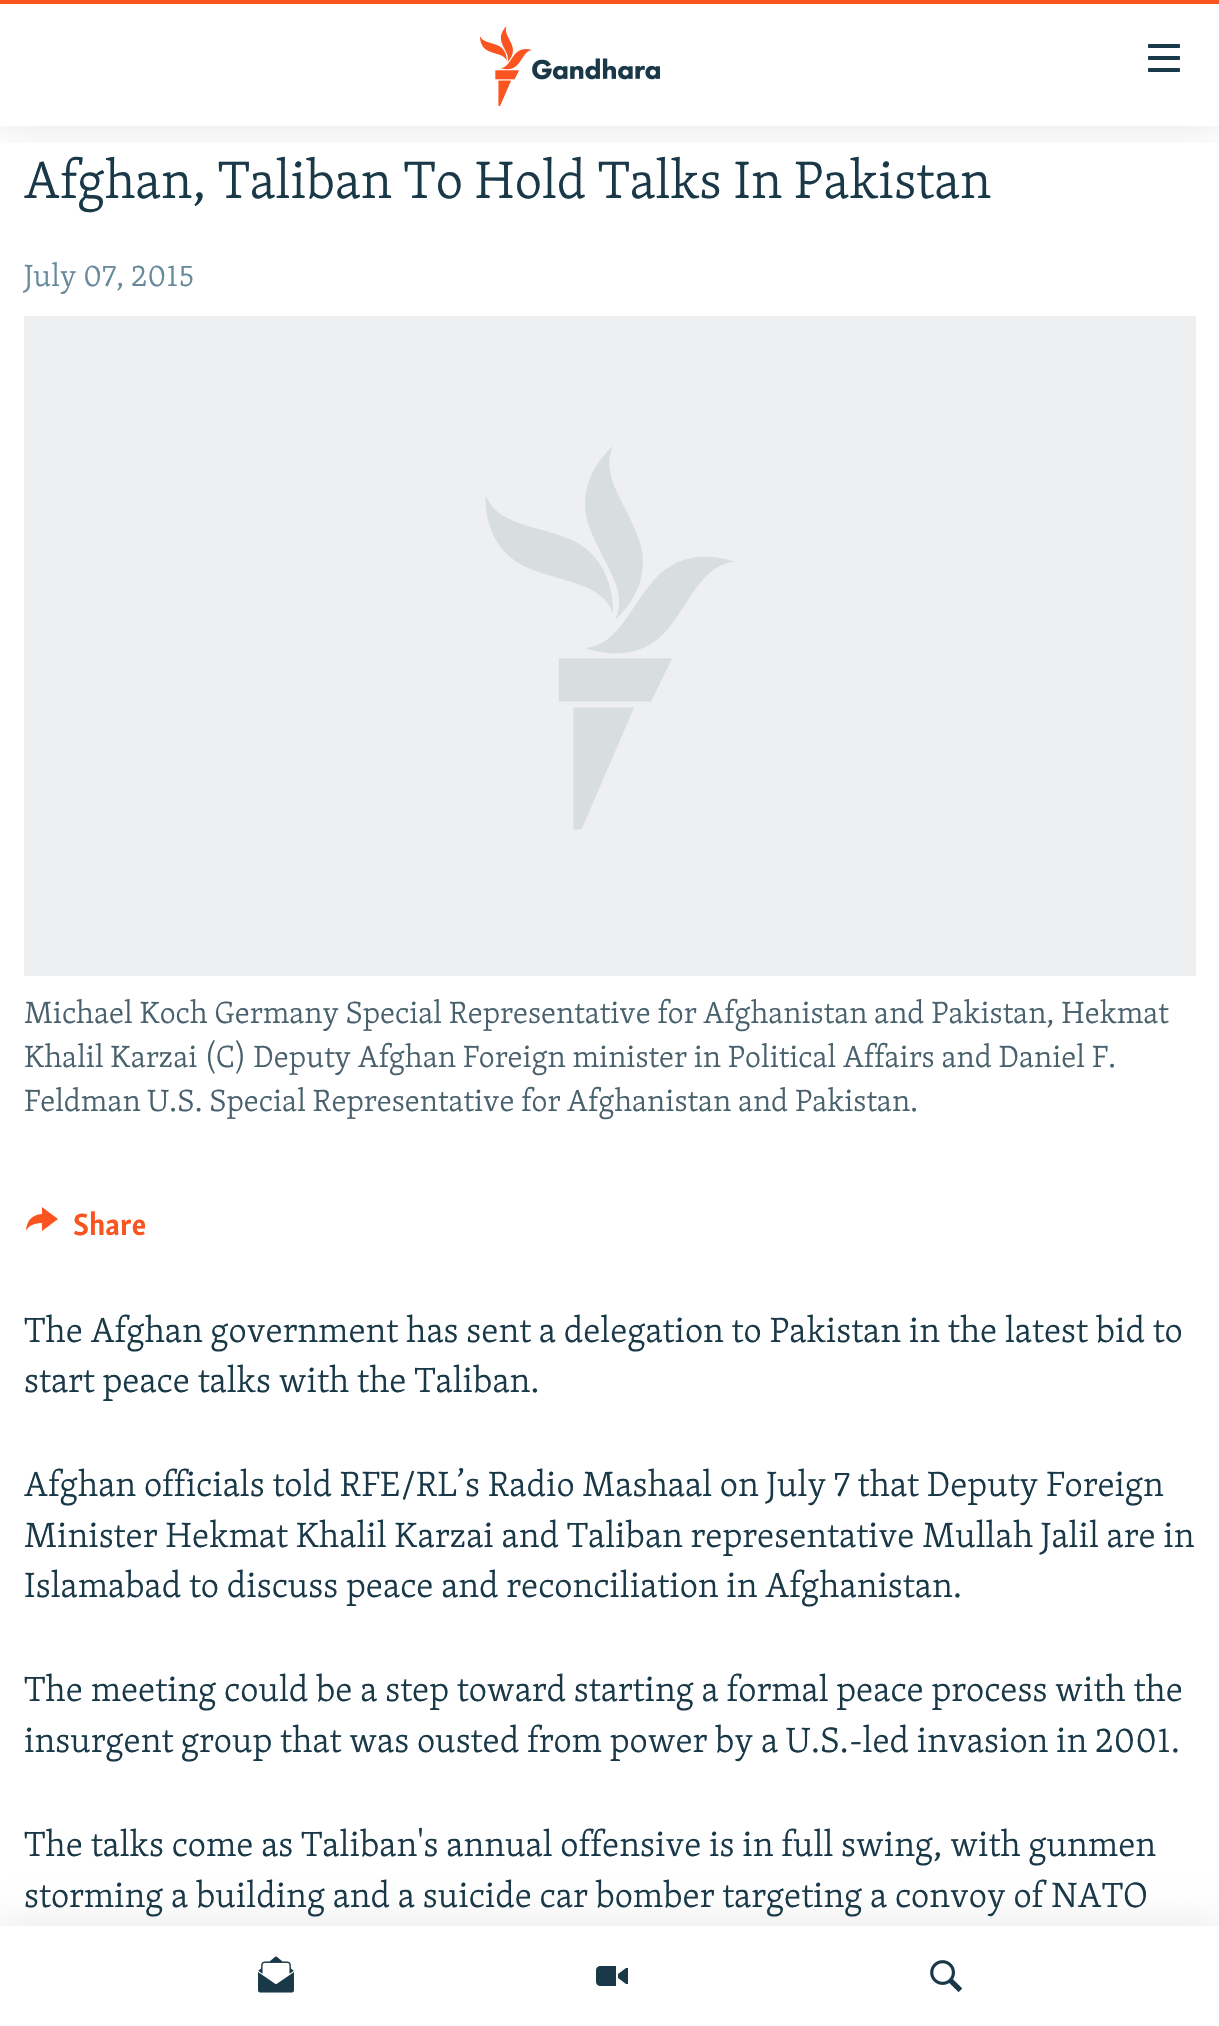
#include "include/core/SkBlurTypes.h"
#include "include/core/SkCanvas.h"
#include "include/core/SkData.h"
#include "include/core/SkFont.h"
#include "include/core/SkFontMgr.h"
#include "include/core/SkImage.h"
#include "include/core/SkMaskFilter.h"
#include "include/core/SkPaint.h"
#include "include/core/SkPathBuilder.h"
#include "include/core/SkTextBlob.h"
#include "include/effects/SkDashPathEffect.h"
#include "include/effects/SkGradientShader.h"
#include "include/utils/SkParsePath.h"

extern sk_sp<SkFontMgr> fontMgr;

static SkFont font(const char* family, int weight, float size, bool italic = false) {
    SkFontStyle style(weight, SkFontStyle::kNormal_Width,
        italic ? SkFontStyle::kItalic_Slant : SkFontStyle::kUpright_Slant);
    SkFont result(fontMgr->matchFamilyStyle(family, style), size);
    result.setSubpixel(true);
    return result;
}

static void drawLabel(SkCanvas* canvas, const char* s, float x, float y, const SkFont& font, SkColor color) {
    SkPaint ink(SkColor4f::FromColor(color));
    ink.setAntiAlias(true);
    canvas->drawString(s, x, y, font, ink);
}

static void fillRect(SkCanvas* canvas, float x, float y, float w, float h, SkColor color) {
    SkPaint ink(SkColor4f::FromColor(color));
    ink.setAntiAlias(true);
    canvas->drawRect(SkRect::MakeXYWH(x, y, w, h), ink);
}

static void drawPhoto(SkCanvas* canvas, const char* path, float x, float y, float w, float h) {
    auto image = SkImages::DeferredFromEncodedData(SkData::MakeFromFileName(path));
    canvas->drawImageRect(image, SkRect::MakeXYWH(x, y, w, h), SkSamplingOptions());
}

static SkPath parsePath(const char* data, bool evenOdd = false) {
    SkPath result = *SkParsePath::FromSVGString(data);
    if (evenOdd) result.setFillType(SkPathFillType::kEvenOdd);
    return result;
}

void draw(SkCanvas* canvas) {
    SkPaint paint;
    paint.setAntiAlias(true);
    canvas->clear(0xFFFFFFFF);
    canvas->save();
    canvas->clipRect(SkRect::MakeXYWH(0, 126, 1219, 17));
    paint.setColor(0x1A000000);
    paint.setMaskFilter(SkMaskFilter::MakeBlur(kNormal_SkBlurStyle, 20));
    canvas->drawRect(SkRect::MakeXYWH(0, 0, 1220, 126), paint);
    paint.setMaskFilter(nullptr);
    canvas->restore();
    fillRect(canvas, 0, 0, 1219, 4, 0xFFFA5420);
    drawPhoto(canvas, "assets/img1.png", 480, 26, 180, 80);
    drawPhoto(canvas, "assets/img2.png", 1148, 44, 32, 28);
    paint.setMaskFilter(SkMaskFilter::MakeBlur(kNormal_SkBlurStyle, 20));
    canvas->drawRect(SkRect::MakeXYWH(0, 1926, 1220, 100), paint);
    paint.setMaskFilter(nullptr);
    fillRect(canvas, 0, 1926, 1219, 100, 0xFFFFFFFF);
    drawPhoto(canvas, "assets/img3.png", 258, 1956, 36, 37);
    drawPhoto(canvas, "assets/img4.png", 596, 1966, 32, 20);
    drawPhoto(canvas, "assets/img5.png", 930, 1960, 32, 32);
    SkFont font1 = font("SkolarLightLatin", 300, 54);
    drawLabel(canvas, "Afghan, Taliban To Hold Talks In Pakistan", 24, 198, font1, 0xFF1A3948);
    SkFont font2 = font("SkolarLightLatin", 300, 31.5f);
    drawLabel(canvas, "July 07, 2015", 24, 286, font2, 0xFF678A9B);
    fillRect(canvas, 24, 316, 1172, 660, 0xFFEDEFF0);
    drawPhoto(canvas, "assets/img6.png", 485, 446, 249, 384);
    drawLabel(canvas, "Michael Koch Germany Special Representative for Afghanistan and Pakistan, Hekmat", 24, 1023, font2, 0xFF48616D);
    drawLabel(canvas, "Khalil Karzai (C) Deputy Afghan Foreign minister in Political Affairs and Daniel F.", 24, 1067, font2, 0xFF48616D);
    drawLabel(canvas, "Feldman U.S. Special Representative for Afghanistan and Pakistan.", 24, 1111, font2, 0xFF48616D);
    paint.setColor(0xFFFA5420);
    canvas->drawPath(parsePath("M26 1231C26.5 1221 32 1214.5 42 1214V1207L58 1219L42 1231V1223C36 1223 28.5 1225 26 1231Z"), paint);
    SkFont font3 = font("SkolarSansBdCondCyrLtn", 700, 31.5f);
    drawLabel(canvas, "Share", 73, 1235, font3, 0xFFFA5420);
    SkFont font4 = font("SkolarLightLatin", 300, 36);
    drawLabel(canvas, "The Afghan government has sent a delegation to Pakistan in the latest bid to", 24, 1342, font4, 0xFF1A3948);
    drawLabel(canvas, "start peace talks with the Taliban.", 24, 1392, font4, 0xFF1A3948);
    drawLabel(canvas, "Afghan officials told RFE/RL’s Radio Mashaal on July 7 that Deputy Foreign", 24, 1496, font4, 0xFF1A3948);
    drawLabel(canvas, "Minister Hekmat Khalil Karzai and Taliban representative Mullah Jalil are in", 24, 1547, font4, 0xFF1A3948);
    drawLabel(canvas, "Islamabad to discuss peace and reconciliation in Afghanistan.", 24, 1597, font4, 0xFF1A3948);
    drawLabel(canvas, "The meeting could be a step toward starting a formal peace process with the", 24, 1701, font4, 0xFF1A3948);
    drawLabel(canvas, "insurgent group that was ousted from power by a U.S.-led invasion in 2001.", 24, 1752, font4, 0xFF1A3948);
    drawLabel(canvas, "The talks come as Taliban's annual offensive is in full swing, with gunmen", 24, 1856, font4, 0xFF1A3948);
    drawLabel(canvas, "storming a building and a suicide car bomber targeting a convoy of NATO", 24, 1907, font4, 0xFF1A3948);
}
